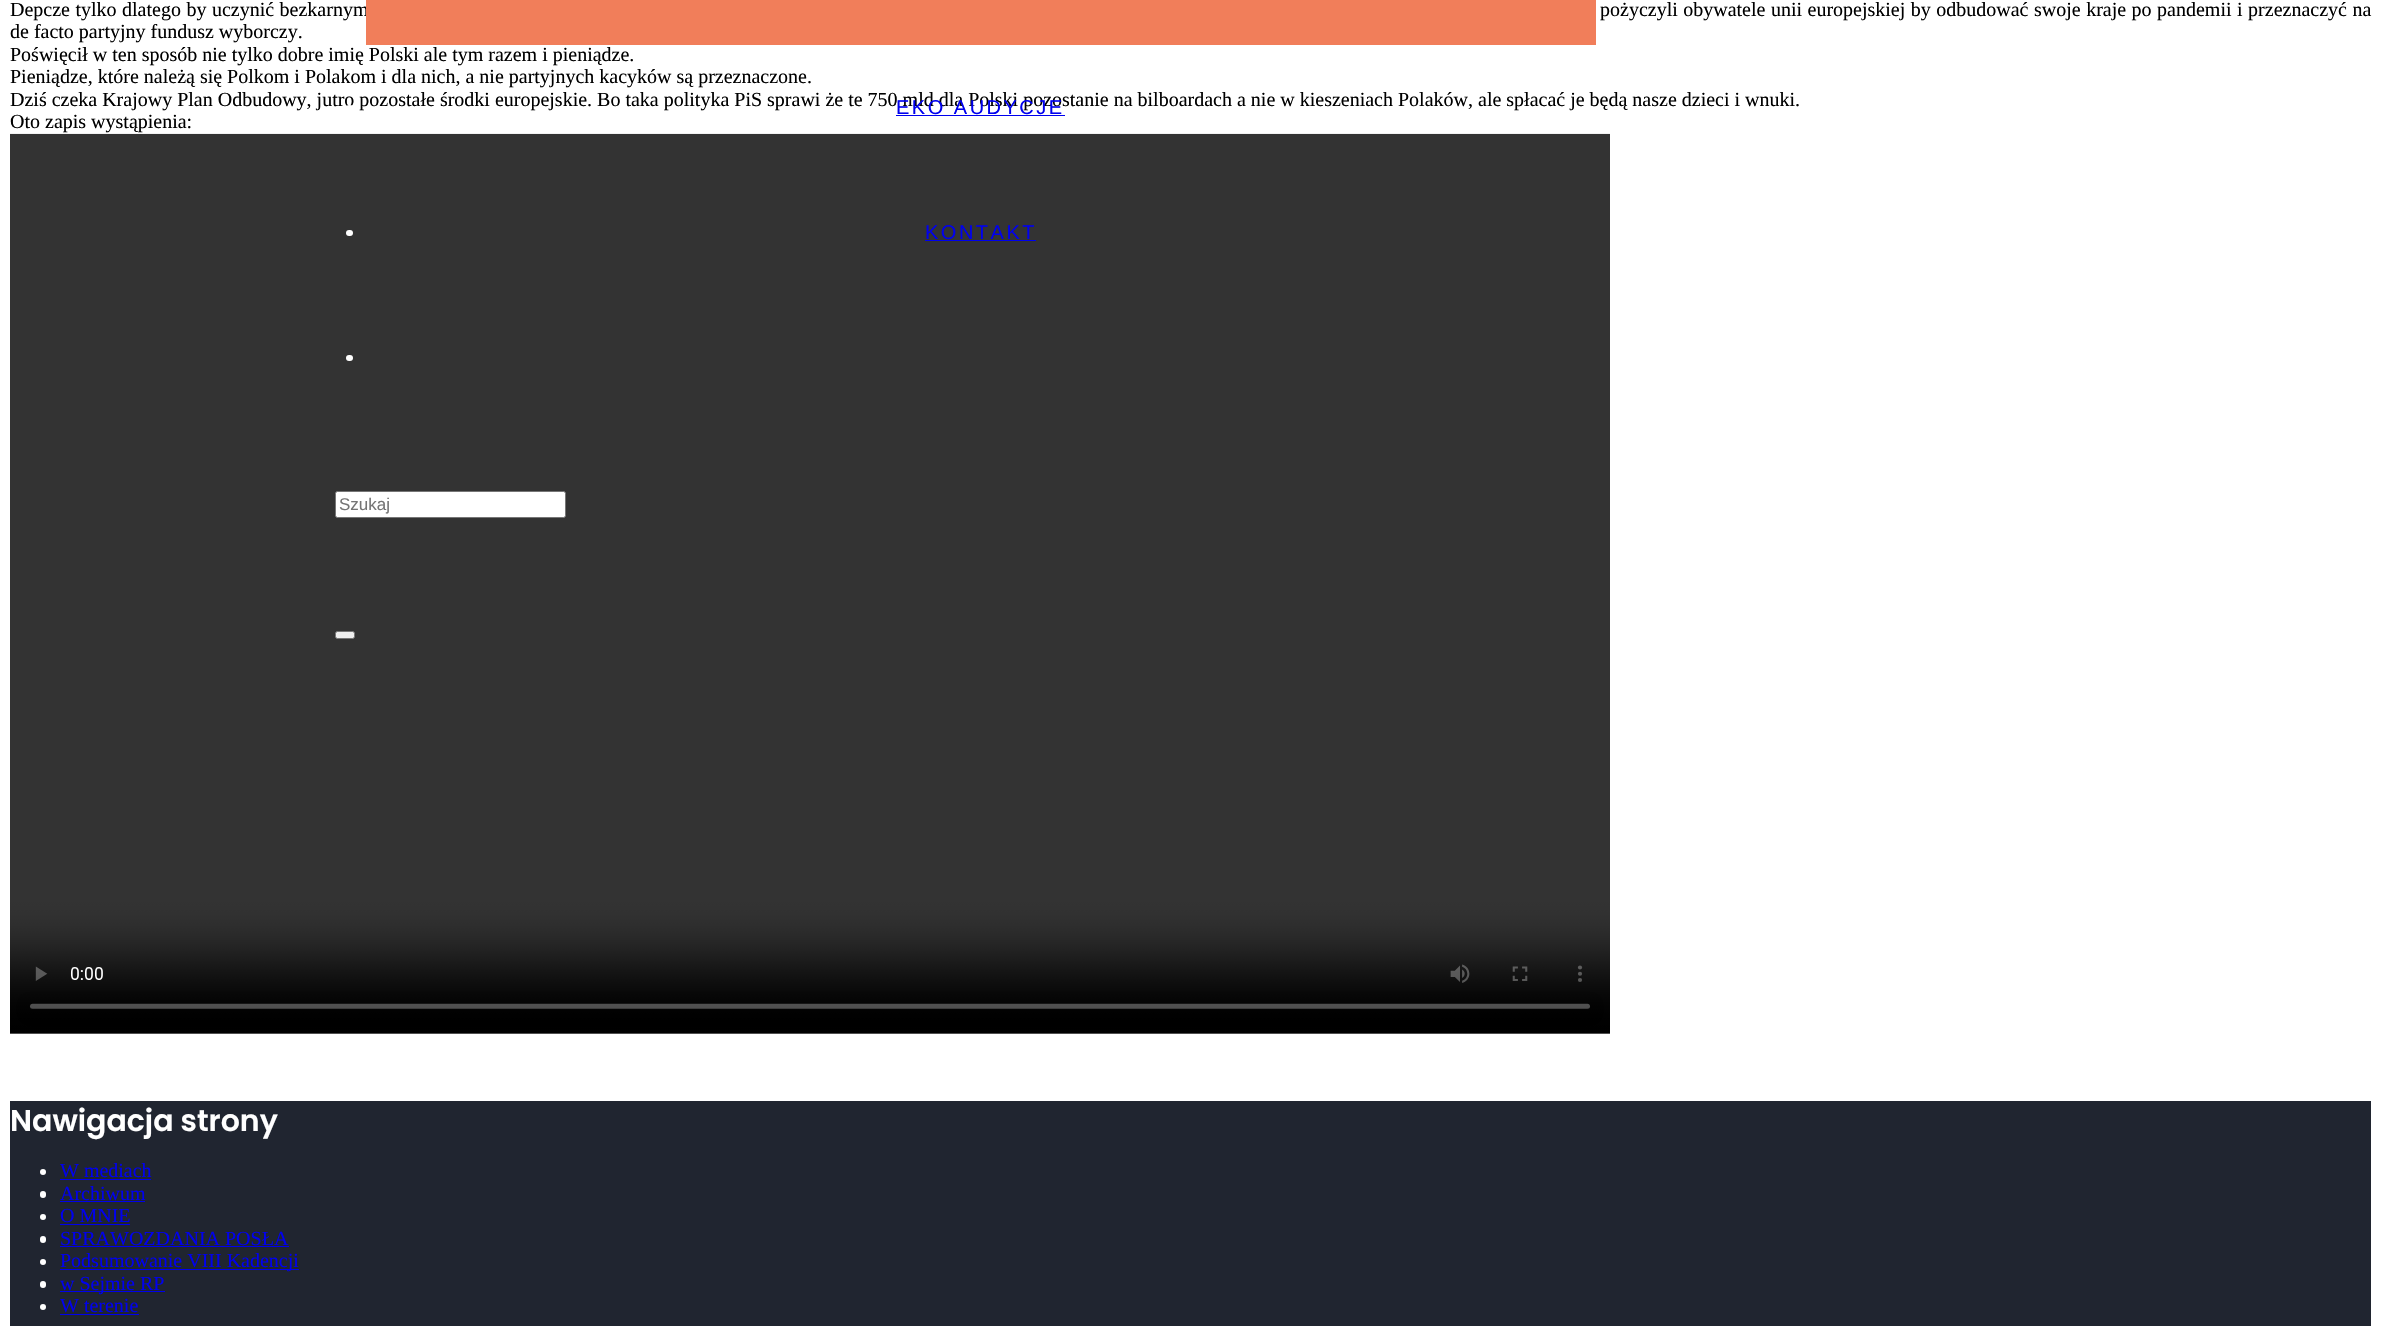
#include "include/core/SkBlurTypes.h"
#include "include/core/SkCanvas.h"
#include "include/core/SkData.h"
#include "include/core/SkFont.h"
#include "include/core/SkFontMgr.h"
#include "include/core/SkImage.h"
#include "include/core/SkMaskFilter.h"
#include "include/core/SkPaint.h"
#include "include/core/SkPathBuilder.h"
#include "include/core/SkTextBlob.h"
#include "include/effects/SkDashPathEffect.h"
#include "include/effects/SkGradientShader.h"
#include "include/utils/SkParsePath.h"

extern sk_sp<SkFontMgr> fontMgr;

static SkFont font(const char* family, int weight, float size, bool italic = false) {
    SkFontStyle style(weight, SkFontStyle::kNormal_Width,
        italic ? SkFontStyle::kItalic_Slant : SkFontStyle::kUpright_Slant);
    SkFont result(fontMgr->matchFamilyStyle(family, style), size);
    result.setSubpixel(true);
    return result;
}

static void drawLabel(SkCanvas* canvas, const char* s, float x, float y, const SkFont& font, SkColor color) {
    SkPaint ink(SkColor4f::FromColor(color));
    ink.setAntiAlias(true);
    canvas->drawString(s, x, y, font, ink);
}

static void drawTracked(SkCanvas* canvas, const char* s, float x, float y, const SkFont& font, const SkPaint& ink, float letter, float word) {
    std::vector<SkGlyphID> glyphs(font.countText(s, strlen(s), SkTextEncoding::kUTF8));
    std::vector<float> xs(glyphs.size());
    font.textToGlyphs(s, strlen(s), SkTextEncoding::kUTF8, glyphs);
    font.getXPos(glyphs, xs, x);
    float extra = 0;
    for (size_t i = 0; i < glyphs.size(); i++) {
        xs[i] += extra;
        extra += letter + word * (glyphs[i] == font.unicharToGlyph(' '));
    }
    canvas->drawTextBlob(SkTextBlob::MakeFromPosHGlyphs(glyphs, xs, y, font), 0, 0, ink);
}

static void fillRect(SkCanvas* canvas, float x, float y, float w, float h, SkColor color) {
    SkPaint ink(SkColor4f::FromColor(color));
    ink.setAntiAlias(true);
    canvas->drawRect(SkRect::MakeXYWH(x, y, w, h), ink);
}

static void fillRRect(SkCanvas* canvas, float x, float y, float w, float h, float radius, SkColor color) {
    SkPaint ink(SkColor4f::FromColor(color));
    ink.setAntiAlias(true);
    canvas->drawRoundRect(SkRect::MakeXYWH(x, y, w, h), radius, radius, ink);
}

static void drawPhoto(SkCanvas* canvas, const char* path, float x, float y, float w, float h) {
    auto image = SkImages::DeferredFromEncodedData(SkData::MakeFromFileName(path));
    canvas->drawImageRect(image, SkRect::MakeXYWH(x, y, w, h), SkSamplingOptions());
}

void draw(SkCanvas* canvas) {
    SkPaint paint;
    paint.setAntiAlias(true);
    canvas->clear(0xFFFFFFFF);
    SkFont font1 = font("Liberation Serif", 400, 20);
    paint.setColor(0xFF000000);
    drawTracked(canvas, "Depcze tylko dlatego by uczynić bezkarnym", 10, 16, font1, paint, 0, 0.5f);
    drawTracked(canvas, "pożyczyli obywatele unii europejskiej by odbudować swoje kraje po pandemii i przeznaczyć na", 1600, 16, font1, paint, 0, 0.5f);
    drawLabel(canvas, "de facto partyjny fundusz wyborczy.", 10, 38, font1, 0xFF000000);
    drawLabel(canvas, "Poświęcił w ten sposób nie tylko dobre imię Polski ale tym razem i pieniądze.", 10, 61, font1, 0xFF000000);
    drawLabel(canvas, "Pieniądze, które należą się Polkom i Polakom i dla nich, a nie partyjnych kacyków są przeznaczone.", 10, 83, font1, 0xFF000000);
    drawLabel(canvas, "Dziś czeka Krajowy Plan Odbudowy, jutro pozostałe środki europejskie. Bo taka polityka PiS sprawi że te 750 mld dla Polski pozostanie na bilboardach a nie w kieszeniach Polaków, ale spłacać je będą nasze dzieci i wnuki.", 10, 106, font1, 0xFF000000);
    drawLabel(canvas, "Oto zapis wystąpienia:", 10, 128, font1, 0xFF000000);
    drawPhoto(canvas, "assets/img1.png", 10, 133, 1600, 901);
    fillRect(canvas, 366, 0, 1230, 45, 0xFFF17E5A);
    fillRRect(canvas, 346, 105, 7, 6, 3, 0xFFFFFFFF);
    SkFont font2 = font("Liberation Sans", 400, 20);
    paint.setColor(0xFF0000EE);
    drawTracked(canvas, "EKO AUDYCJE", 896, 114, font2, paint, 2.5f, 0);
    fillRect(canvas, 896, 115, 169, 1, 0xFF0000EE);
    fillRRect(canvas, 346, 230, 7, 6, 3, 0xFFFFFFFF);
    drawTracked(canvas, "KONTAKT", 925, 239, font2, paint, 2.5f, 0);
    fillRect(canvas, 925, 240, 111, 1, 0xFF0000EE);
    fillRRect(canvas, 346, 355, 7, 6, 3, 0xFFFFFFFF);
    paint.setColor(0xFFFFFFFF);
    canvas->drawRoundRect(SkRect::MakeXYWH(335.5f, 491.5f, 230, 26), 2, 2, paint);
    paint.setStroke(true);
    paint.setStrokeWidth(1);
    paint.setColor(0xFF767676);
    canvas->drawRoundRect(SkRect::MakeXYWH(335.5f, 491.5f, 230, 26), 2, 2, paint);
    SkFont font3 = font("Liberation Sans", 400, 17);
    drawLabel(canvas, "Szukaj", 339, 510, font3, 0xFF757575);
    paint.setStroke(false);
    paint.setColor(0xFFEFEFEF);
    canvas->drawRoundRect(SkRect::MakeXYWH(335.5f, 631.5f, 19, 7), 2, 2, paint);
    paint.setStroke(true);
    paint.setColor(0xFF767676);
    canvas->drawRoundRect(SkRect::MakeXYWH(335.5f, 631.5f, 19, 7), 2, 2, paint);
    fillRect(canvas, 10, 1101, 2361, 225, 0xFF202530);
    SkFont font4 = font("Poppins", 600, 30);
    drawLabel(canvas, "Nawigacja strony", 10, 1131, font4, 0xFFFFFFFF);
    paint.setStroke(false);
    paint.setColor(0xFFFFFFFF);
    canvas->drawCircle(43, 1172, 3, paint);
    drawLabel(canvas, "W mediach", 60, 1177, font1, 0xFF0000EE);
    fillRect(canvas, 60, 1179, 91, 1, 0xFF0000EE);
    fillRRect(canvas, 40, 1191, 6, 7, 3, 0xFFFFFFFF);
    drawLabel(canvas, "Archiwum", 60, 1200, font1, 0xFF0000EE);
    fillRect(canvas, 60, 1201, 85, 1, 0xFF0000EE);
    canvas->drawCircle(43, 1217, 3, paint);
    drawLabel(canvas, "O MNIE", 60, 1222, font1, 0xFF0000EE);
    fillRect(canvas, 60, 1224, 70, 1, 0xFF0000EE);
    fillRRect(canvas, 40, 1236, 6, 7, 3, 0xFFFFFFFF);
    drawLabel(canvas, "SPRAWOZDANIA POSŁA", 60, 1245, font1, 0xFF0000EE);
    fillRect(canvas, 60, 1246, 229, 1, 0xFF0000EE);
    canvas->drawCircle(43, 1262, 3, paint);
    fillRect(canvas, 60, 1269, 239, 1, 0xFF0000EE);
    drawLabel(canvas, "Podsumowanie VIII Kadencji", 60, 1267, font1, 0xFF0000EE);
    fillRRect(canvas, 40, 1281, 6, 7, 3, 0xFFFFFFFF);
    fillRect(canvas, 60, 1291, 105, 1, 0xFF0000EE);
    drawLabel(canvas, "w Sejmie RP", 60, 1290, font1, 0xFF0000EE);
    canvas->drawCircle(43, 1307, 3, paint);
    drawLabel(canvas, "W terenie", 60, 1312, font1, 0xFF0000EE);
    fillRect(canvas, 60, 1314, 79, 1, 0xFF0000EE);
}
